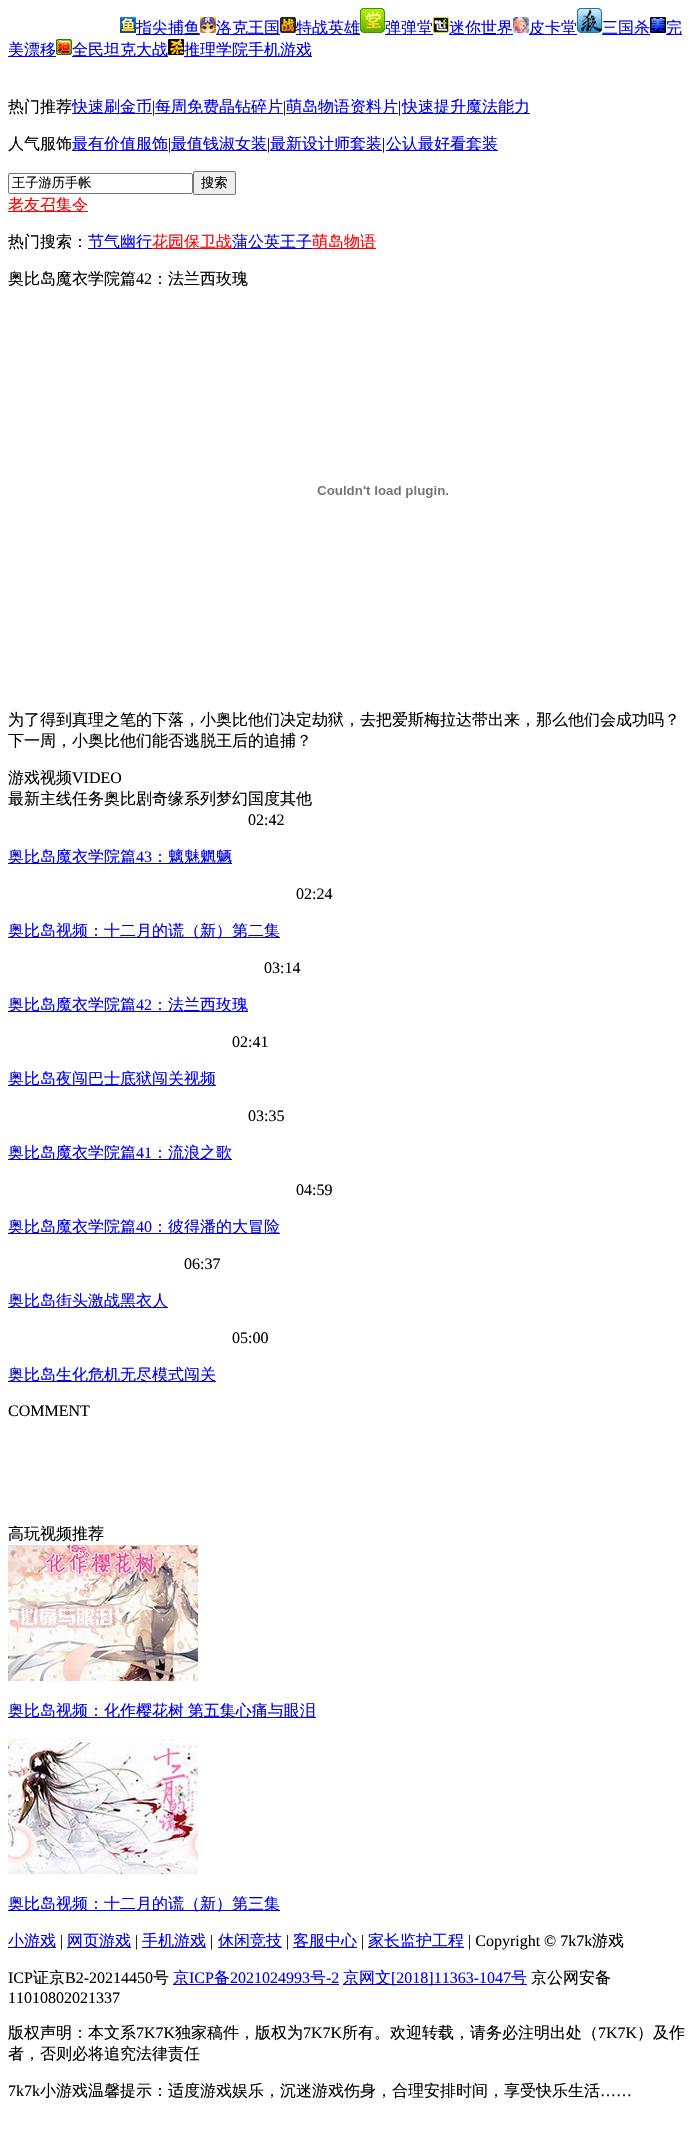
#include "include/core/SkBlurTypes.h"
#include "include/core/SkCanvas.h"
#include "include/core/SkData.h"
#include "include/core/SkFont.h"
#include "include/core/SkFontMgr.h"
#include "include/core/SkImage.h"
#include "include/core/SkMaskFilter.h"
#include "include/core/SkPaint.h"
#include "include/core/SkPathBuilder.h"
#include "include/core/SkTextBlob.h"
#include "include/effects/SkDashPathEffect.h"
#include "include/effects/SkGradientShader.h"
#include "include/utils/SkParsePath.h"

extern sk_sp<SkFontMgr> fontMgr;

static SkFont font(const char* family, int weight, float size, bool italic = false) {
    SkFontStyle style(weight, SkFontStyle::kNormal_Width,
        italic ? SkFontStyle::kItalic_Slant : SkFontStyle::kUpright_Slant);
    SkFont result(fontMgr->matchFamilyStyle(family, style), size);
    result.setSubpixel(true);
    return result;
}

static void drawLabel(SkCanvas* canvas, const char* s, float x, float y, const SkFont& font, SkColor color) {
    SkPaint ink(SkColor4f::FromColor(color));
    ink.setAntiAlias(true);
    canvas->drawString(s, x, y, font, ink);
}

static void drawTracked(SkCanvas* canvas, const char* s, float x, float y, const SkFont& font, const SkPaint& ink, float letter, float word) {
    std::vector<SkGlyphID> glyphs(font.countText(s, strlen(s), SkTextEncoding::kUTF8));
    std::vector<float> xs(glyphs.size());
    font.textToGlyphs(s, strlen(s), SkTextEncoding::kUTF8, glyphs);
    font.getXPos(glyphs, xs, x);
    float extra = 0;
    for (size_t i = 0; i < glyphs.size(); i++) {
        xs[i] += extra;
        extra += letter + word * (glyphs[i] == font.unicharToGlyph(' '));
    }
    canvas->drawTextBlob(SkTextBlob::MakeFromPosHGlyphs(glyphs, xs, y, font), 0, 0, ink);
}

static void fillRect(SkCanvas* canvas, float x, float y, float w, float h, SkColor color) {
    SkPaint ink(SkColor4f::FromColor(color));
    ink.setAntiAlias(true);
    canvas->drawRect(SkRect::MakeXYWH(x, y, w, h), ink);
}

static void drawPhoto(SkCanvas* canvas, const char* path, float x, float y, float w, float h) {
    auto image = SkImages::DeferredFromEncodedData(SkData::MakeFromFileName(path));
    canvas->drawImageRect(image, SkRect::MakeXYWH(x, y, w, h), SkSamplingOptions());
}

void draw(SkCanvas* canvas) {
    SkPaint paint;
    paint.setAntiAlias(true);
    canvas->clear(0xFFFFFFFF);
    drawPhoto(canvas, "assets/img1.png", 120, 17, 16, 16);
    fillRect(canvas, 136, 34, 64, 1, 0xFF0000EE);
    SkFont font1 = font("WenQuanYi Zen Hei", 500, 16);
    drawLabel(canvas, "指尖捕鱼", 136, 33, font1, 0xFF0000EE);
    drawPhoto(canvas, "assets/img2.png", 200, 17, 16, 16);
    fillRect(canvas, 216, 34, 64, 1, 0xFF0000EE);
    drawLabel(canvas, "洛克王国", 216, 33, font1, 0xFF0000EE);
    drawPhoto(canvas, "assets/img3.png", 280, 17, 16, 16);
    fillRect(canvas, 296, 34, 64, 1, 0xFF0000EE);
    drawLabel(canvas, "特战英雄", 296, 33, font1, 0xFF0000EE);
    drawPhoto(canvas, "assets/img4.png", 360, 8, 25, 25);
    fillRect(canvas, 385, 34, 48, 1, 0xFF0000EE);
    drawLabel(canvas, "弹弹堂", 385, 33, font1, 0xFF0000EE);
    drawPhoto(canvas, "assets/img5.png", 433, 17, 16, 16);
    fillRect(canvas, 449, 34, 64, 1, 0xFF0000EE);
    drawLabel(canvas, "迷你世界", 449, 33, font1, 0xFF0000EE);
    drawPhoto(canvas, "assets/img6.png", 513, 17, 16, 16);
    fillRect(canvas, 529, 34, 48, 1, 0xFF0000EE);
    drawLabel(canvas, "皮卡堂", 529, 33, font1, 0xFF0000EE);
    drawPhoto(canvas, "assets/img7.png", 577, 8, 25, 25);
    fillRect(canvas, 602, 34, 48, 1, 0xFF0000EE);
    drawLabel(canvas, "三国杀", 602, 33, font1, 0xFF0000EE);
    drawPhoto(canvas, "assets/img8.png", 650, 17, 16, 16);
    fillRect(canvas, 666, 34, 16, 1, 0xFF0000EE);
    drawLabel(canvas, "完", 666, 33, font1, 0xFF0000EE);
    fillRect(canvas, 8, 56, 48, 1, 0xFF0000EE);
    drawLabel(canvas, "美漂移", 8, 55, font1, 0xFF0000EE);
    drawPhoto(canvas, "assets/img9.png", 56, 39, 16, 16);
    fillRect(canvas, 72, 56, 96, 1, 0xFF0000EE);
    drawLabel(canvas, "全民坦克大战", 72, 55, font1, 0xFF0000EE);
    drawPhoto(canvas, "assets/img10.png", 168, 39, 16, 16);
    fillRect(canvas, 184, 56, 128, 1, 0xFF0000EE);
    drawLabel(canvas, "推理学院手机游戏", 184, 55, font1, 0xFF0000EE);
    drawLabel(canvas, "热门推荐", 8, 112, font1, 0xFF000000);
    fillRect(canvas, 72, 113, 80, 1, 0xFF0000EE);
    drawLabel(canvas, "快速刷金币", 72, 112, font1, 0xFF0000EE);
    SkFont font2 = font("Liberation Serif", 400, 16);
    drawLabel(canvas, "|", 152, 112, font2, 0xFF000000);
    fillRect(canvas, 155, 113, 128, 1, 0xFF0000EE);
    drawLabel(canvas, "每周免费晶钻碎片", 155, 112, font1, 0xFF0000EE);
    drawLabel(canvas, "|", 283, 112, font2, 0xFF000000);
    fillRect(canvas, 286, 113, 112, 1, 0xFF0000EE);
    drawLabel(canvas, "萌岛物语资料片", 286, 112, font1, 0xFF0000EE);
    drawLabel(canvas, "|", 398, 112, font2, 0xFF000000);
    fillRect(canvas, 402, 113, 128, 1, 0xFF0000EE);
    drawLabel(canvas, "快速提升魔法能力", 402, 112, font1, 0xFF0000EE);
    drawLabel(canvas, "人气服饰", 8, 149, font1, 0xFF000000);
    fillRect(canvas, 72, 150, 96, 1, 0xFF0000EE);
    drawLabel(canvas, "最有价值服饰", 72, 149, font1, 0xFF0000EE);
    drawLabel(canvas, "|", 168, 149, font2, 0xFF000000);
    fillRect(canvas, 171, 150, 96, 1, 0xFF0000EE);
    drawLabel(canvas, "最值钱淑女装", 171, 149, font1, 0xFF0000EE);
    drawLabel(canvas, "|", 267, 149, font2, 0xFF000000);
    fillRect(canvas, 270, 150, 112, 1, 0xFF0000EE);
    drawLabel(canvas, "最新设计师套装", 270, 149, font1, 0xFF0000EE);
    drawLabel(canvas, "|", 382, 149, font2, 0xFF000000);
    fillRect(canvas, 386, 150, 112, 1, 0xFF0000EE);
    drawLabel(canvas, "公认最好看套装", 386, 149, font1, 0xFF0000EE);
    paint.setStroke(true);
    paint.setStrokeWidth(1);
    paint.setColor(0xFF767676);
    canvas->drawRoundRect(SkRect::MakeXYWH(8.5f, 173.5f, 184, 20), 1.5f, 1.5f, paint);
    SkFont font3 = font("WenQuanYi Zen Hei", 500, 13.25f);
    drawLabel(canvas, "王子游历手帐", 12, 187, font3, 0xFF000000);
    paint.setStroke(false);
    paint.setColor(0xFFEFEFEF);
    canvas->drawRoundRect(SkRect::MakeXYWH(193.5f, 171.5f, 42, 23), 1.5f, 1.5f, paint);
    paint.setStroke(true);
    paint.setColor(0xFF767676);
    canvas->drawRoundRect(SkRect::MakeXYWH(193.5f, 171.5f, 42, 23), 1.5f, 1.5f, paint);
    drawLabel(canvas, "搜索", 201, 187, font3, 0xFF000000);
    fillRect(canvas, 8, 211, 80, 1, 0xFFFF0000);
    drawLabel(canvas, "老友召集令", 8, 210, font1, 0xFFFF0000);
    drawLabel(canvas, "热门搜索：", 8, 247, font1, 0xFF000000);
    fillRect(canvas, 88, 248, 64, 1, 0xFF0000EE);
    drawLabel(canvas, "节气幽行", 88, 247, font1, 0xFF0000EE);
    fillRect(canvas, 152, 248, 80, 1, 0xFFFF0000);
    drawLabel(canvas, "花园保卫战", 152, 247, font1, 0xFFFF0000);
    fillRect(canvas, 232, 248, 80, 1, 0xFF0000EE);
    drawLabel(canvas, "蒲公英王子", 232, 247, font1, 0xFF0000EE);
    fillRect(canvas, 312, 248, 64, 1, 0xFFFF0000);
    drawLabel(canvas, "萌岛物语", 312, 247, font1, 0xFFFF0000);
    drawLabel(canvas, "奥比岛魔衣学院篇", 8, 284, font1, 0xFF000000);
    drawLabel(canvas, "42", 136, 284, font2, 0xFF000000);
    drawLabel(canvas, "：法兰西玫瑰", 152, 284, font1, 0xFF000000);
    drawPhoto(canvas, "assets/img11.png", 317, 486, 131, 12);
    drawLabel(canvas, "为了得到真理之笔的下落，小奥比他们决定劫狱，去把爱斯梅拉达带出来，那么他们会成功吗？", 8, 725, font1, 0xFF000000);
    drawLabel(canvas, "下一周，小奥比他们能否逃脱王后的追捕？", 8, 746, font1, 0xFF000000);
    drawLabel(canvas, "游戏视频", 8, 783, font1, 0xFF000000);
    drawLabel(canvas, "VIDEO", 72, 783, font2, 0xFF000000);
    drawLabel(canvas, "最新主线任务奥比剧奇缘系列梦幻国度其他", 8, 804, font1, 0xFF000000);
    drawLabel(canvas, "02:42", 248, 825, font2, 0xFF000000);
    fillRect(canvas, 8, 863, 224, 1, 0xFF0000EE);
    drawLabel(canvas, "奥比岛魔衣学院篇", 8, 862, font1, 0xFF0000EE);
    drawLabel(canvas, "43", 136, 862, font2, 0xFF0000EE);
    drawLabel(canvas, "：魑魅魍魉", 152, 862, font1, 0xFF0000EE);
    drawLabel(canvas, "02:24", 296, 899, font2, 0xFF000000);
    fillRect(canvas, 8, 937, 272, 1, 0xFF0000EE);
    drawLabel(canvas, "奥比岛视频：十二月的谎（新）第二集", 8, 936, font1, 0xFF0000EE);
    drawLabel(canvas, "03:14", 264, 973, font2, 0xFF000000);
    fillRect(canvas, 8, 1011, 240, 1, 0xFF0000EE);
    drawLabel(canvas, "奥比岛魔衣学院篇", 8, 1010, font1, 0xFF0000EE);
    drawLabel(canvas, "42", 136, 1010, font2, 0xFF0000EE);
    drawLabel(canvas, "：法兰西玫瑰", 152, 1010, font1, 0xFF0000EE);
    drawLabel(canvas, "02:41", 232, 1047, font2, 0xFF000000);
    fillRect(canvas, 8, 1085, 208, 1, 0xFF0000EE);
    drawLabel(canvas, "奥比岛夜闯巴士底狱闯关视频", 8, 1084, font1, 0xFF0000EE);
    drawLabel(canvas, "03:35", 248, 1121, font2, 0xFF000000);
    fillRect(canvas, 8, 1159, 224, 1, 0xFF0000EE);
    drawLabel(canvas, "奥比岛魔衣学院篇", 8, 1158, font1, 0xFF0000EE);
    drawLabel(canvas, "41", 136, 1158, font2, 0xFF0000EE);
    drawLabel(canvas, "：流浪之歌", 152, 1158, font1, 0xFF0000EE);
    drawLabel(canvas, "04:59", 296, 1195, font2, 0xFF000000);
    fillRect(canvas, 8, 1233, 272, 1, 0xFF0000EE);
    drawLabel(canvas, "奥比岛魔衣学院篇", 8, 1232, font1, 0xFF0000EE);
    drawLabel(canvas, "40", 136, 1232, font2, 0xFF0000EE);
    drawLabel(canvas, "：彼得潘的大冒险", 152, 1232, font1, 0xFF0000EE);
    drawLabel(canvas, "06:37", 184, 1269, font2, 0xFF000000);
    fillRect(canvas, 8, 1307, 160, 1, 0xFF0000EE);
    drawLabel(canvas, "奥比岛街头激战黑衣人", 8, 1306, font1, 0xFF0000EE);
    drawLabel(canvas, "05:00", 232, 1343, font2, 0xFF000000);
    fillRect(canvas, 8, 1381, 208, 1, 0xFF0000EE);
    drawLabel(canvas, "奥比岛生化危机无尽模式闯关", 8, 1380, font1, 0xFF0000EE);
    drawLabel(canvas, "COMMENT", 8, 1416, font2, 0xFF000000);
    drawLabel(canvas, "高玩视频推荐", 8, 1539, font1, 0xFF000000);
    drawPhoto(canvas, "assets/img12.png", 8, 1545, 190, 136);
    fillRect(canvas, 8, 1717, 308, 1, 0xFF0000EE);
    paint.setStroke(false);
    paint.setColor(0xFF0000EE);
    drawTracked(canvas, "奥比岛视频：化作樱花树 第五集心痛与眼泪", 8, 1716, font1, paint, 0, -1);
    drawPhoto(canvas, "assets/img13.png", 8, 1738, 190, 136);
    fillRect(canvas, 8, 1910, 272, 1, 0xFF0000EE);
    drawLabel(canvas, "奥比岛视频：十二月的谎（新）第三集", 8, 1909, font1, 0xFF0000EE);
    fillRect(canvas, 8, 1947, 48, 1, 0xFF0000EE);
    drawLabel(canvas, "小游戏", 8, 1946, font1, 0xFF0000EE);
    drawLabel(canvas, "|", 60, 1946, font2, 0xFF000000);
    fillRect(canvas, 67, 1947, 64, 1, 0xFF0000EE);
    drawLabel(canvas, "网页游戏", 67, 1946, font1, 0xFF0000EE);
    drawLabel(canvas, "|", 135, 1946, font2, 0xFF000000);
    fillRect(canvas, 142, 1947, 64, 1, 0xFF0000EE);
    drawLabel(canvas, "手机游戏", 142, 1946, font1, 0xFF0000EE);
    drawLabel(canvas, "|", 210, 1946, font2, 0xFF000000);
    fillRect(canvas, 218, 1947, 64, 1, 0xFF0000EE);
    drawLabel(canvas, "休闲竞技", 218, 1946, font1, 0xFF0000EE);
    drawLabel(canvas, "|", 286, 1946, font2, 0xFF000000);
    fillRect(canvas, 293, 1947, 64, 1, 0xFF0000EE);
    drawLabel(canvas, "客服中心", 293, 1946, font1, 0xFF0000EE);
    drawLabel(canvas, "|", 361, 1946, font2, 0xFF000000);
    fillRect(canvas, 368, 1947, 96, 1, 0xFF0000EE);
    drawLabel(canvas, "家长监护工程", 368, 1946, font1, 0xFF0000EE);
    drawLabel(canvas, "| Copyright © 7k7k", 468, 1946, font2, 0xFF000000);
    drawLabel(canvas, "游戏", 592, 1946, font1, 0xFF000000);
    drawLabel(canvas, "ICP", 8, 1983, font2, 0xFF000000);
    drawLabel(canvas, "证京", 33, 1983, font1, 0xFF000000);
    drawLabel(canvas, "B2-20214450", 65, 1983, font2, 0xFF000000);
    drawLabel(canvas, "号", 153, 1983, font1, 0xFF000000);
    fillRect(canvas, 173, 1984, 166, 1, 0xFF0000EE);
    drawLabel(canvas, "京", 173, 1983, font1, 0xFF0000EE);
    drawLabel(canvas, "ICP", 189, 1983, font2, 0xFF0000EE);
    drawLabel(canvas, "备", 214, 1983, font1, 0xFF0000EE);
    drawLabel(canvas, "2021024993", 230, 1983, font2, 0xFF0000EE);
    drawLabel(canvas, "号", 310, 1983, font1, 0xFF0000EE);
    drawLabel(canvas, "-2", 326, 1983, font2, 0xFF0000EE);
    fillRect(canvas, 343, 1984, 184, 1, 0xFF0000EE);
    drawLabel(canvas, "京网文", 343, 1983, font1, 0xFF0000EE);
    drawLabel(canvas, "[2018]11363-1047", 391, 1983, font2, 0xFF0000EE);
    drawLabel(canvas, "号", 511, 1983, font1, 0xFF0000EE);
    drawLabel(canvas, "京公网安备", 531, 1983, font1, 0xFF000000);
    drawLabel(canvas, "11010802021337", 8, 2003, font2, 0xFF000000);
    drawLabel(canvas, "版权声明：本文系", 8, 2038, font1, 0xFF000000);
    drawLabel(canvas, "7K7K", 136, 2038, font2, 0xFF000000);
    drawLabel(canvas, "独家稿件，版权为", 175, 2038, font1, 0xFF000000);
    drawLabel(canvas, "7K7K", 303, 2038, font2, 0xFF000000);
    drawLabel(canvas, "所有。欢迎转载，请务必注明出处（", 342, 2038, font1, 0xFF000000);
    drawLabel(canvas, "7K7K", 598, 2038, font2, 0xFF000000);
    drawLabel(canvas, "）及作", 637, 2038, font1, 0xFF000000);
    drawLabel(canvas, "者，否则必将追究法律责任", 8, 2059, font1, 0xFF000000);
    drawLabel(canvas, "7k7k", 8, 2096, font2, 0xFF000000);
    drawLabel(canvas, "小游戏温馨提示：适度游戏娱乐，沉迷游戏伤身，合理安排时间，享受快乐生活", 40, 2096, font1, 0xFF000000);
    drawLabel(canvas, "……", 600, 2096, font2, 0xFF000000);
}
